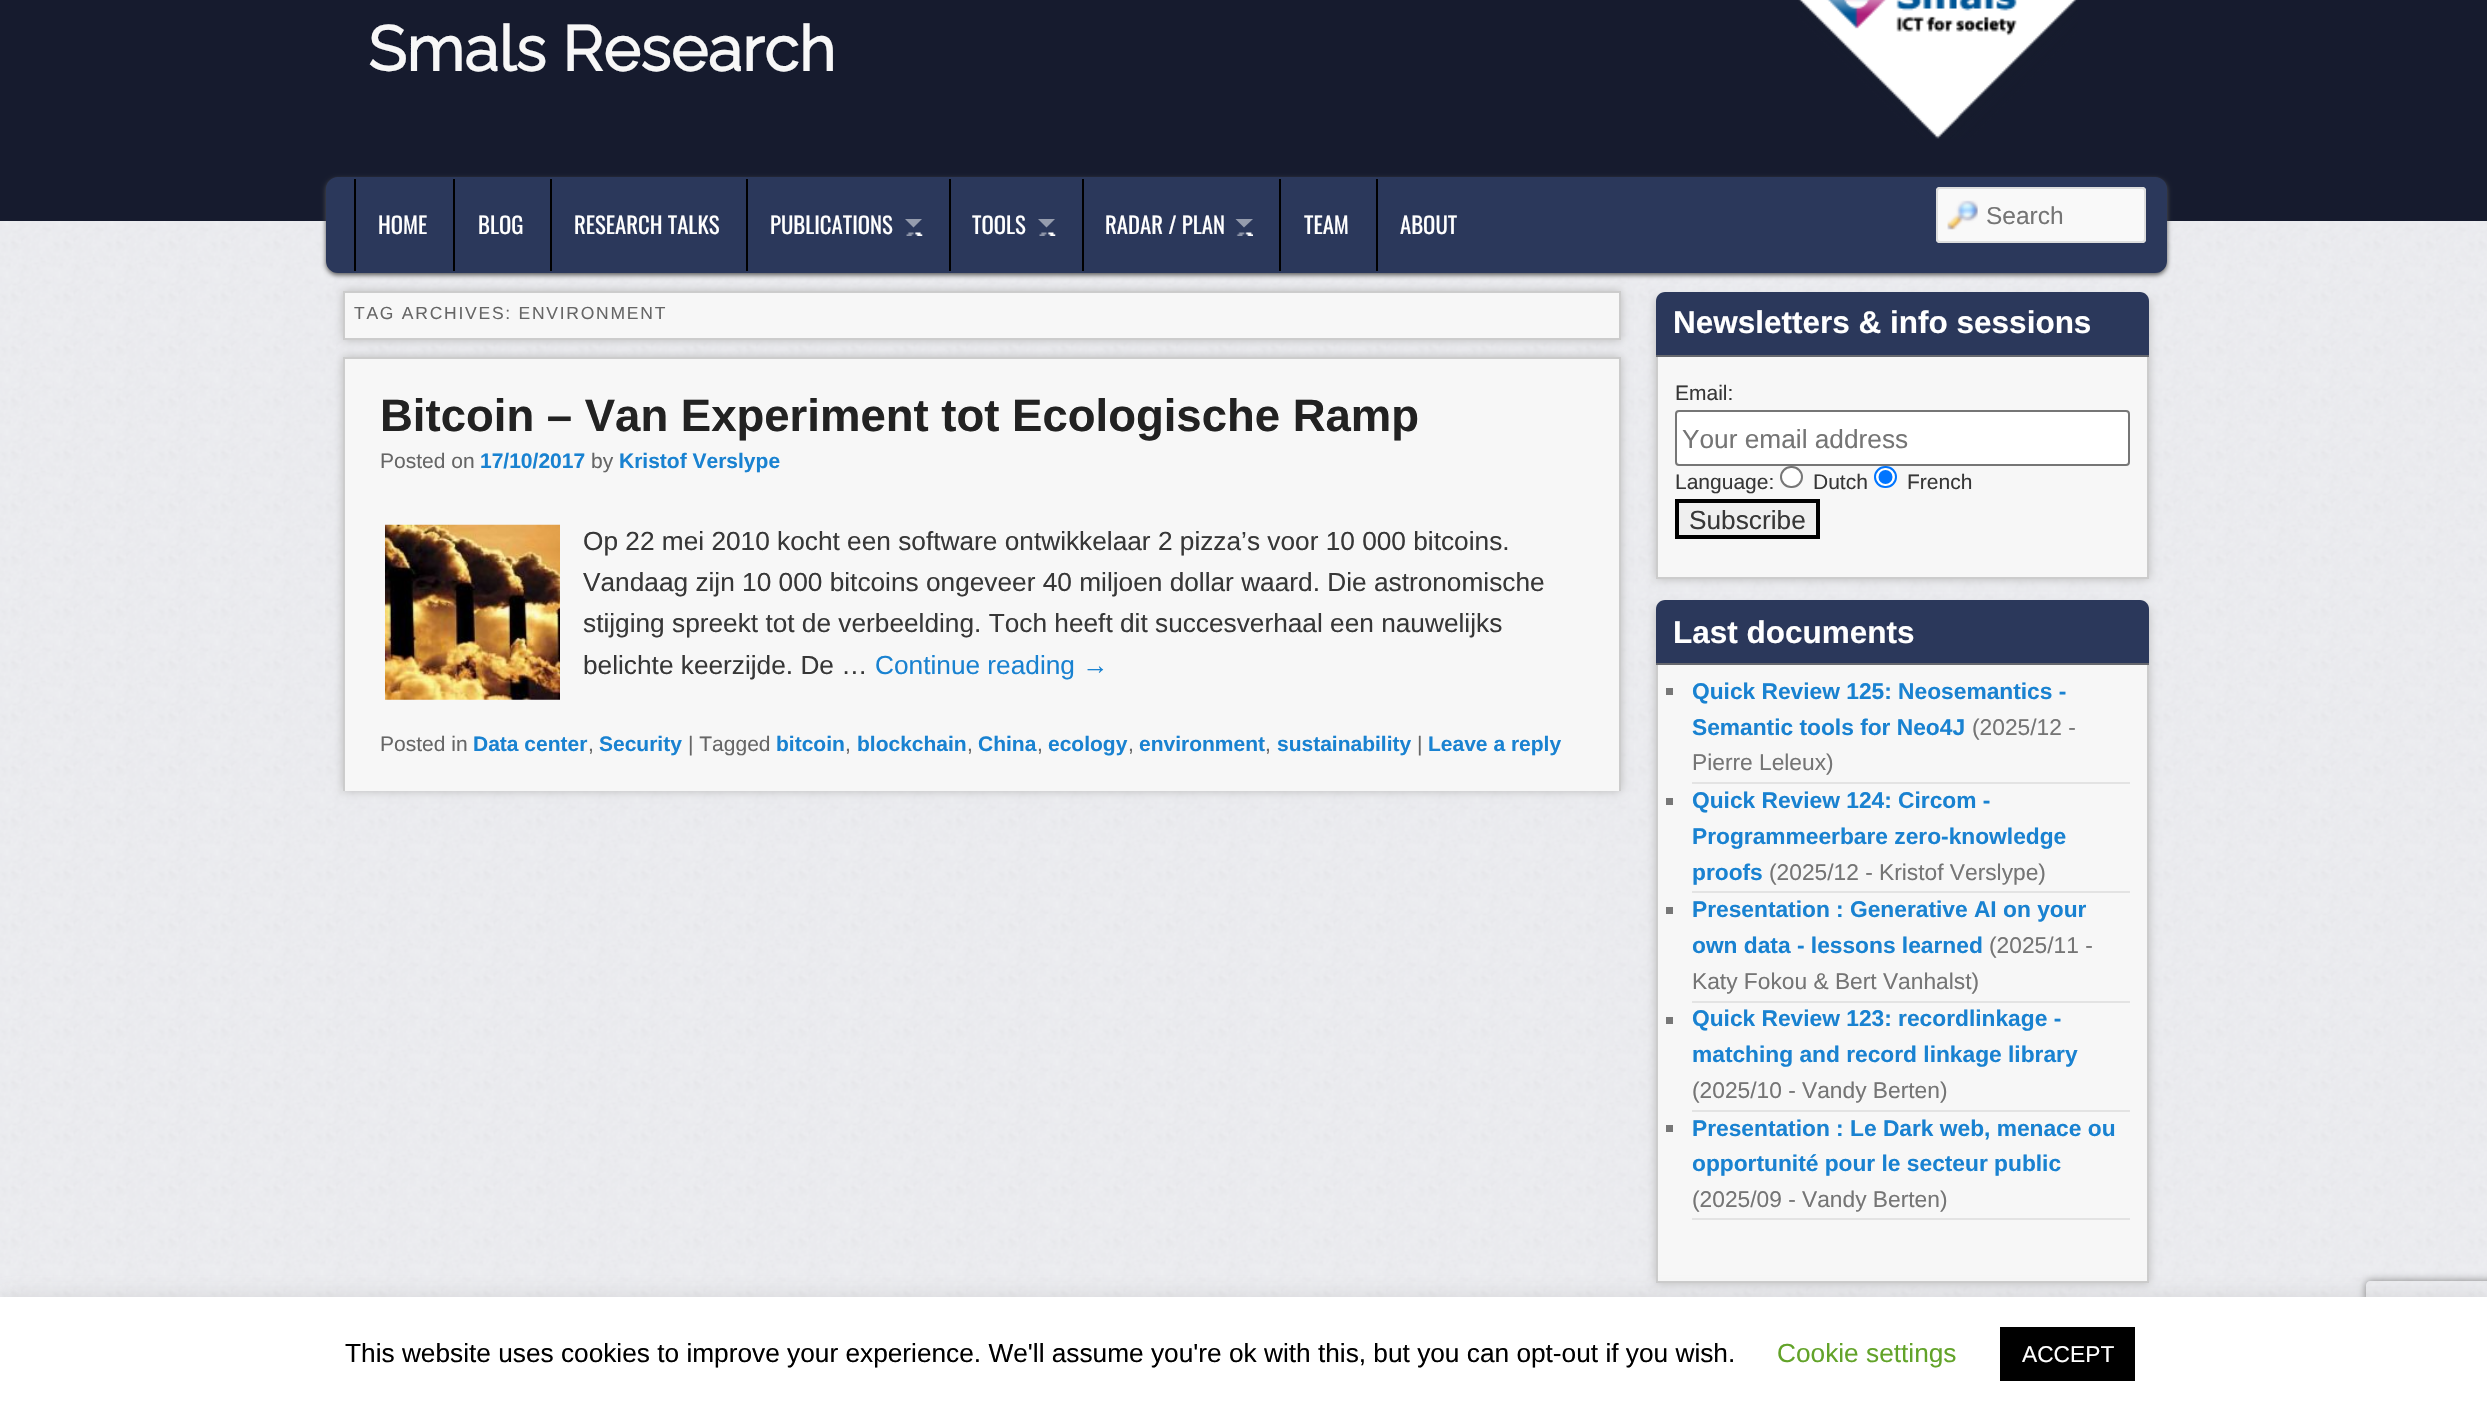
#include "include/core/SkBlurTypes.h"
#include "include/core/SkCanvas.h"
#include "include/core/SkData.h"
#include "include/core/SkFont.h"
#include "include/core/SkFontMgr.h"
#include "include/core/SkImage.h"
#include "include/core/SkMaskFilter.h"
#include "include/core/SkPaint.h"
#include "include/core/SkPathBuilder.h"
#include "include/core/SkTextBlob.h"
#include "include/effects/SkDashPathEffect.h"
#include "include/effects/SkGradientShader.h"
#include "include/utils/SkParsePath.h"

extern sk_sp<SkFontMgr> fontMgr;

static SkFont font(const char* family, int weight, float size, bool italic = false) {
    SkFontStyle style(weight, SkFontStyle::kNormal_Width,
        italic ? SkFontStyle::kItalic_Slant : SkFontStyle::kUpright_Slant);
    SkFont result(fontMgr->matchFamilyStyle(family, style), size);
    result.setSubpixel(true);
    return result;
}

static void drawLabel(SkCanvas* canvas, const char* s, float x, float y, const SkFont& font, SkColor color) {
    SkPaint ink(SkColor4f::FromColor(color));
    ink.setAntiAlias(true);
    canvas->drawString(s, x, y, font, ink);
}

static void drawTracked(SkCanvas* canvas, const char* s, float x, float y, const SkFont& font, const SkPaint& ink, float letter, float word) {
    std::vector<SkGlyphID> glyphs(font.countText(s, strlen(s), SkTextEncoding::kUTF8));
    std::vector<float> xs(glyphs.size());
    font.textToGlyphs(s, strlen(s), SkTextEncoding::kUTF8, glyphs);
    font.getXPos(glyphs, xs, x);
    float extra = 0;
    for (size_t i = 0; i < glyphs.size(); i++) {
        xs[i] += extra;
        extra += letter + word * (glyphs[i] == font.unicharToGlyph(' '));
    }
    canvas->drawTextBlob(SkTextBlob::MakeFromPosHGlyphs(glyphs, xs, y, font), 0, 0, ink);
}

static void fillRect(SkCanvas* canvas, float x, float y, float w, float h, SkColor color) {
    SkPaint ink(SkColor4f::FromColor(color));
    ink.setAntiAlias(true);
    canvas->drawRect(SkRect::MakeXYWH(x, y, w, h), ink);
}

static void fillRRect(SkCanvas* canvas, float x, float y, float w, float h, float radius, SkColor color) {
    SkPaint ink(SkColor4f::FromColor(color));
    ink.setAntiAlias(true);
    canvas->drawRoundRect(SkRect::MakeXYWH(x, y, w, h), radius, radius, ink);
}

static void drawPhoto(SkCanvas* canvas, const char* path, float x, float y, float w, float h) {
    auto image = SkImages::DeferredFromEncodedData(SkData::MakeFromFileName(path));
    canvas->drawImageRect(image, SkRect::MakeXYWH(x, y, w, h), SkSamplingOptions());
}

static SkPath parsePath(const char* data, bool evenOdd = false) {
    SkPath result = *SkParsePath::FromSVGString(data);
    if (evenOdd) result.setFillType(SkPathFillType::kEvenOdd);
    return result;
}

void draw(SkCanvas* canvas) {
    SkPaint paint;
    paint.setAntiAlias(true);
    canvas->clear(0xFFFFFFFF);
    drawPhoto(canvas, "assets/img1.png", 0, 221, 2487, 1076);
    fillRect(canvas, 0, 0, 2487, 221, 0xFF161B2E);
    SkFont font1 = font("Raleway", 700, 63);
    drawLabel(canvas, "Smals Research", 368, 71, font1, 0xFFF7F7F7);
    drawPhoto(canvas, "assets/img2.png", 1798, 0, 280, 139);
    paint.setColor(0xFF555555);
    paint.setMaskFilter(SkMaskFilter::MakeBlur(kNormal_SkBlurStyle, 2.5f));
    canvas->drawRoundRect(SkRect::MakeXYWH(326, 179, 1841, 96), 12, 12, paint);
    paint.setMaskFilter(nullptr);
    paint.setColor(0xFF2B385B);
    canvas->drawRoundRect(SkRect::MakeXYWH(327, 178, 1839, 94), 11, 11, paint);
    paint.setStroke(true);
    paint.setStrokeWidth(2);
    canvas->drawRoundRect(SkRect::MakeXYWH(327, 178, 1839, 94), 11, 11, paint);
    fillRect(canvas, 354, 179, 2, 92, 0xFF000000);
    SkFont font2 = font("Oswald", 400, 22.75f);
    drawLabel(canvas, "HOME", 378, 234, font2, 0xFFFFFFFF);
    fillRect(canvas, 453, 179, 2, 92, 0xFF000000);
    drawLabel(canvas, "BLOG", 478, 234, font2, 0xFFFFFFFF);
    fillRect(canvas, 550, 179, 2, 92, 0xFF000000);
    drawLabel(canvas, "RESEARCH TALKS", 574, 234, font2, 0xFFFFFFFF);
    fillRect(canvas, 746, 179, 2, 92, 0xFF000000);
    drawLabel(canvas, "PUBLICATIONS", 770, 234, font2, 0xFFFFFFFF);
    drawPhoto(canvas, "assets/img3.png", 906, 232, 17, 4);
    paint.setStroke(false);
    paint.setColor(0xFF959CAD);
    canvas->drawPath(parsePath("M905 219H922L913.5 227.5Z"), paint);
    fillRect(canvas, 949, 179, 2, 92, 0xFF000000);
    drawLabel(canvas, "TOOLS", 972, 234, font2, 0xFFFFFFFF);
    drawPhoto(canvas, "assets/img4.png", 1039, 232, 17, 4);
    canvas->drawPath(parsePath("M1038 219H1055L1046.5 227.5Z"), paint);
    fillRect(canvas, 1082, 179, 2, 92, 0xFF000000);
    drawLabel(canvas, "RADAR / PLAN", 1105, 234, font2, 0xFFFFFFFF);
    drawPhoto(canvas, "assets/img5.png", 1236, 232, 17, 4);
    canvas->drawPath(parsePath("M1235.5 219H1253L1244 227.5Z"), paint);
    fillRect(canvas, 1279, 179, 2, 92, 0xFF000000);
    drawLabel(canvas, "TEAM", 1304, 234, font2, 0xFFFFFFFF);
    fillRect(canvas, 1376, 179, 2, 92, 0xFF000000);
    drawLabel(canvas, "ABOUT", 1400, 234, font2, 0xFFFFFFFF);
    fillRRect(canvas, 1936, 187, 210, 56, 4, 0xFFF9F9F9);
    drawPhoto(canvas, "assets/img6.png", 1947, 200, 31, 30);
    paint.setStroke(true);
    paint.setColor(0xFFDDDDDD);
    canvas->drawRoundRect(SkRect::MakeXYWH(1937, 188, 208, 54), 3, 3, paint);
    SkFont font3 = font("Liberation Sans", 400, 24.5f);
    drawLabel(canvas, "Search", 1986, 224, font3, 0xFF757575);
    paint.setStroke(false);
    paint.setColor(0xFFBBBBBB);
    paint.setMaskFilter(SkMaskFilter::MakeBlur(kNormal_SkBlurStyle, 4.5f));
    canvas->drawRect(SkRect::MakeXYWH(343, 291, 1278, 49), paint);
    paint.setMaskFilter(nullptr);
    paint.setColor(0xFFF7F7F7);
    canvas->drawRect(SkRect::MakeXYWH(344, 292, 1276, 47), paint);
    paint.setStroke(true);
    paint.setColor(0xFFCCCCCC);
    canvas->drawRect(SkRect::MakeXYWH(344, 292, 1276, 47), paint);
    SkFont font4 = font("Liberation Sans", 400, 17.5f);
    paint.setStroke(false);
    paint.setColor(0xFF666666);
    drawTracked(canvas, "TAG ARCHIVES: ENVIRONMENT", 354, 319, font4, paint, 1.75f, 0);
    paint.setColor(0xFFBBBBBB);
    paint.setMaskFilter(SkMaskFilter::MakeBlur(kNormal_SkBlurStyle, 4.5f));
    canvas->drawRect(SkRect::MakeXYWH(343, 357, 1278, 434), paint);
    paint.setMaskFilter(nullptr);
    fillRect(canvas, 345, 359, 1274, 432, 0xFFF7F7F7);
    fillRect(canvas, 343, 357, 1278, 2, 0xFFCCCCCC);
    fillRect(canvas, 1619, 357, 2, 434, 0xFFCCCCCC);
    fillRect(canvas, 343, 357, 2, 434, 0xFFCCCCCC);
    SkFont font5 = font("Liberation Sans", 700, 45.5f);
    drawLabel(canvas, "Bitcoin – Van Experiment tot Ecologische Ramp", 380, 431, font5, 0xFF222222);
    SkFont font6 = font("Liberation Sans", 400, 21);
    drawLabel(canvas, "Posted on", 380, 468, font6, 0xFF666666);
    SkFont font7 = font("Liberation Sans", 700, 21);
    drawLabel(canvas, "17/10/2017", 480, 468, font7, 0xFF1982D1);
    drawLabel(canvas, "by", 591, 468, font6, 0xFF666666);
    drawLabel(canvas, "Kristof Verslype", 619, 468, font7, 0xFF1982D1);
    drawPhoto(canvas, "assets/img7.png", 385, 524, 175, 176);
    SkFont font8 = font("Liberation Sans", 400, 26.25f);
    drawLabel(canvas, "Op 22 mei 2010 kocht een software ontwikkelaar 2 pizza’s voor 10 000 bitcoins.", 583, 550, font8, 0xFF373737);
    drawLabel(canvas, "Vandaag zijn 10 000 bitcoins ongeveer 40 miljoen dollar waard. Die astronomische", 583, 591, font8, 0xFF373737);
    drawLabel(canvas, "stijging spreekt tot de verbeelding. Toch heeft dit succesverhaal een nauwelijks", 583, 632, font8, 0xFF373737);
    drawLabel(canvas, "belichte keerzijde. De …", 583, 674, font8, 0xFF373737);
    drawLabel(canvas, "Continue reading →", 875, 674, font8, 0xFF1982D1);
    drawLabel(canvas, "Posted in", 380, 751, font6, 0xFF666666);
    drawLabel(canvas, "Data center", 473, 751, font7, 0xFF1982D1);
    drawLabel(canvas, ",", 588, 751, font6, 0xFF666666);
    drawLabel(canvas, "Security", 599, 751, font7, 0xFF1982D1);
    drawLabel(canvas, "| Tagged", 688, 751, font6, 0xFF666666);
    drawLabel(canvas, "bitcoin", 776, 751, font7, 0xFF1982D1);
    drawLabel(canvas, ",", 845, 751, font6, 0xFF666666);
    drawLabel(canvas, "blockchain", 857, 751, font7, 0xFF1982D1);
    drawLabel(canvas, ",", 967, 751, font6, 0xFF666666);
    drawLabel(canvas, "China", 978, 751, font7, 0xFF1982D1);
    drawLabel(canvas, ",", 1037, 751, font6, 0xFF666666);
    drawLabel(canvas, "ecology", 1048, 751, font7, 0xFF1982D1);
    drawLabel(canvas, ",", 1128, 751, font6, 0xFF666666);
    drawLabel(canvas, "environment", 1139, 751, font7, 0xFF1982D1);
    drawLabel(canvas, ",", 1265, 751, font6, 0xFF666666);
    drawLabel(canvas, "sustainability", 1277, 751, font7, 0xFF1982D1);
    drawLabel(canvas, "|", 1417, 751, font6, 0xFF666666);
    drawLabel(canvas, "Leave a reply", 1428, 751, font7, 0xFF1982D1);
    paint.setMaskFilter(SkMaskFilter::MakeBlur(kNormal_SkBlurStyle, 4.5f));
    canvas->drawRect(SkRect::MakeXYWH(1656, 299, 493, 280), paint);
    paint.setMaskFilter(nullptr);
    fillRect(canvas, 1658, 357, 489, 220, 0xFFF7F7F7);
    paint.setStroke(true);
    paint.setColor(0xFFCCCCCC);
    canvas->drawRect(SkRect::MakeXYWH(1657, 300, 491, 278), paint);
    paint.setStroke(false);
    paint.setColor(0xFF2B385B);
    canvas->drawPath(parsePath("M1665 292H2140C2145 292 2149 296 2149 301V357H1656V301C1656 296 1660 292 1665 292Z"), paint);
    fillRect(canvas, 1656, 355, 493, 2, 0xFF66686E);
    SkFont font9 = font("Liberation Sans", 700, 31.5f);
    drawLabel(canvas, "Newsletters & info sessions", 1673, 333, font9, 0xFFFFFFFF);
    drawLabel(canvas, "Email:", 1675, 400, font6, 0xFF373737);
    paint.setColor(0xFFFFFFFF);
    canvas->drawRoundRect(SkRect::MakeXYWH(1676, 411, 453, 54), 3, 3, paint);
    paint.setStroke(true);
    paint.setColor(0xFF767676);
    canvas->drawRoundRect(SkRect::MakeXYWH(1676, 411, 453, 54), 3, 3, paint);
    drawLabel(canvas, "Your email address", 1682, 448, font8, 0xFF757575);
    drawLabel(canvas, "Language:", 1675, 489, font6, 0xFF373737);
    paint.setStroke(false);
    paint.setColor(0xFFFFFFFF);
    canvas->drawRoundRect(SkRect::MakeXYWH(1781, 467, 21, 20), 10, 10, paint);
    paint.setStroke(true);
    paint.setColor(0xFF767676);
    canvas->drawRoundRect(SkRect::MakeXYWH(1781, 467, 21, 20), 10, 10, paint);
    drawLabel(canvas, "Dutch", 1813, 489, font6, 0xFF373737);
    paint.setStroke(false);
    paint.setColor(0xFFFFFFFF);
    canvas->drawRoundRect(SkRect::MakeXYWH(1875, 467, 21, 20), 10, 10, paint);
    paint.setStroke(true);
    paint.setColor(0xFF0075FF);
    canvas->drawRoundRect(SkRect::MakeXYWH(1875, 467, 21, 20), 10, 10, paint);
    paint.setStroke(false);
    canvas->drawCircle(1885.5f, 477, 7, paint);
    drawLabel(canvas, "French", 1907, 489, font6, 0xFF373737);
    paint.setColor(0xFFEFEFEF);
    canvas->drawRect(SkRect::MakeXYWH(1677, 501, 141, 36), paint);
    paint.setStroke(true);
    paint.setStrokeWidth(4);
    paint.setColor(0xFF000000);
    canvas->drawRect(SkRect::MakeXYWH(1677, 501, 141, 36), paint);
    drawLabel(canvas, "Subscribe", 1689, 529, font8, 0xFF373737);
    canvas->save();
    canvas->clipPath(parsePath("M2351 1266H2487V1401H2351ZM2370 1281H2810C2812 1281 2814 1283 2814 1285V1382C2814 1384 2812 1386 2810 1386H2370C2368 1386 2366 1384 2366 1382V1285C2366 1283 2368 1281 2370 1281Z", true), true);
    paint.setStroke(false);
    paint.setColor(0xFF808080);
    paint.setMaskFilter(SkMaskFilter::MakeBlur(kNormal_SkBlurStyle, 4.5f));
    canvas->drawRoundRect(SkRect::MakeXYWH(2366, 1281, 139, 105), 4, 4, paint);
    paint.setMaskFilter(nullptr);
    canvas->restore();
    paint.setColor(0xFFBBBBBB);
    paint.setMaskFilter(SkMaskFilter::MakeBlur(kNormal_SkBlurStyle, 4.5f));
    canvas->drawRect(SkRect::MakeXYWH(1656, 607, 493, 676), paint);
    paint.setMaskFilter(nullptr);
    fillRect(canvas, 1658, 665, 489, 616, 0xFFF7F7F7);
    paint.setStroke(true);
    paint.setStrokeWidth(2);
    paint.setColor(0xFFCCCCCC);
    canvas->drawRect(SkRect::MakeXYWH(1657, 608, 491, 674), paint);
    paint.setStroke(false);
    paint.setColor(0xFF2B385B);
    canvas->drawPath(parsePath("M1665 600H2140C2145 600 2149 604 2149 609V665H1656V609C1656 604 1660 600 1665 600Z"), paint);
    fillRect(canvas, 1656, 663, 493, 2, 0xFF66686E);
    drawLabel(canvas, "Last documents", 1673, 643, font9, 0xFFFFFFFF);
    fillRect(canvas, 1692, 782, 438, 2, 0xFFE3E3E3);
    fillRect(canvas, 1666, 688, 7, 7, 0xFF777777);
    SkFont font10 = font("Liberation Sans", 700, 22.75f);
    drawLabel(canvas, "Quick Review 125: Neosemantics -", 1692, 699, font10, 0xFF1982D1);
    drawLabel(canvas, "Semantic tools for Neo4J", 1692, 735, font10, 0xFF1982D1);
    SkFont font11 = font("Liberation Sans", 400, 22.75f);
    drawLabel(canvas, "(2025/12 -", 1972, 735, font11, 0xFF757575);
    drawLabel(canvas, "Pierre Leleux)", 1692, 770, font11, 0xFF757575);
    fillRect(canvas, 1692, 891, 438, 2, 0xFFE3E3E3);
    fillRect(canvas, 1666, 798, 7, 7, 0xFF777777);
    drawLabel(canvas, "Quick Review 124: Circom -", 1692, 808, font10, 0xFF1982D1);
    drawLabel(canvas, "Programmeerbare zero-knowledge", 1692, 844, font10, 0xFF1982D1);
    drawLabel(canvas, "proofs", 1692, 880, font10, 0xFF1982D1);
    drawLabel(canvas, "(2025/12 - Kristof Verslype)", 1769, 880, font11, 0xFF757575);
    fillRect(canvas, 1692, 1001, 438, 2, 0xFFE3E3E3);
    fillRect(canvas, 1666, 907, 7, 7, 0xFF777777);
    drawLabel(canvas, "Presentation : Generative AI on your", 1692, 917, font10, 0xFF1982D1);
    drawLabel(canvas, "own data - lessons learned", 1692, 953, font10, 0xFF1982D1);
    drawLabel(canvas, "(2025/11 -", 1989, 953, font11, 0xFF757575);
    drawLabel(canvas, "Katy Fokou & Bert Vanhalst)", 1692, 989, font11, 0xFF757575);
    fillRect(canvas, 1692, 1110, 438, 2, 0xFFE3E3E3);
    fillRect(canvas, 1666, 1017, 7, 7, 0xFF777777);
    drawLabel(canvas, "Quick Review 123: recordlinkage -", 1692, 1026, font10, 0xFF1982D1);
    drawLabel(canvas, "matching and record linkage library", 1692, 1062, font10, 0xFF1982D1);
    drawLabel(canvas, "(2025/10 - Vandy Berten)", 1692, 1098, font11, 0xFF757575);
    fillRect(canvas, 1692, 1218, 438, 2, 0xFFE3E3E3);
    fillRect(canvas, 1666, 1125, 7, 7, 0xFF777777);
    drawLabel(canvas, "Presentation : Le Dark web, menace ou", 1692, 1136, font10, 0xFF1982D1);
    drawLabel(canvas, "opportunité pour le secteur public", 1692, 1171, font10, 0xFF1982D1);
    drawLabel(canvas, "(2025/09 - Vandy Berten)", 1692, 1207, font11, 0xFF757575);
    paint.setColor(0x4DACABAB);
    paint.setMaskFilter(SkMaskFilter::MakeBlur(kNormal_SkBlurStyle, 9));
    canvas->drawRect(SkRect::MakeXYWH(0, 1295, 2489, 114), paint);
    paint.setMaskFilter(nullptr);
    fillRect(canvas, 0, 1297, 2487, 113, 0xFFFFFFFF);
    drawLabel(canvas, "This website uses cookies to improve your experience. We'll assume you're ok with this, but you can opt-out if you wish.", 345, 1362, font8, 0xFF000000);
    drawLabel(canvas, "Cookie settings", 1777, 1362, font8, 0xFF62A329);
    fillRect(canvas, 2000, 1327, 135, 54, 0xFF000000);
    drawLabel(canvas, "ACCEPT", 2022, 1362, font11, 0xFFFFFFFF);
}
